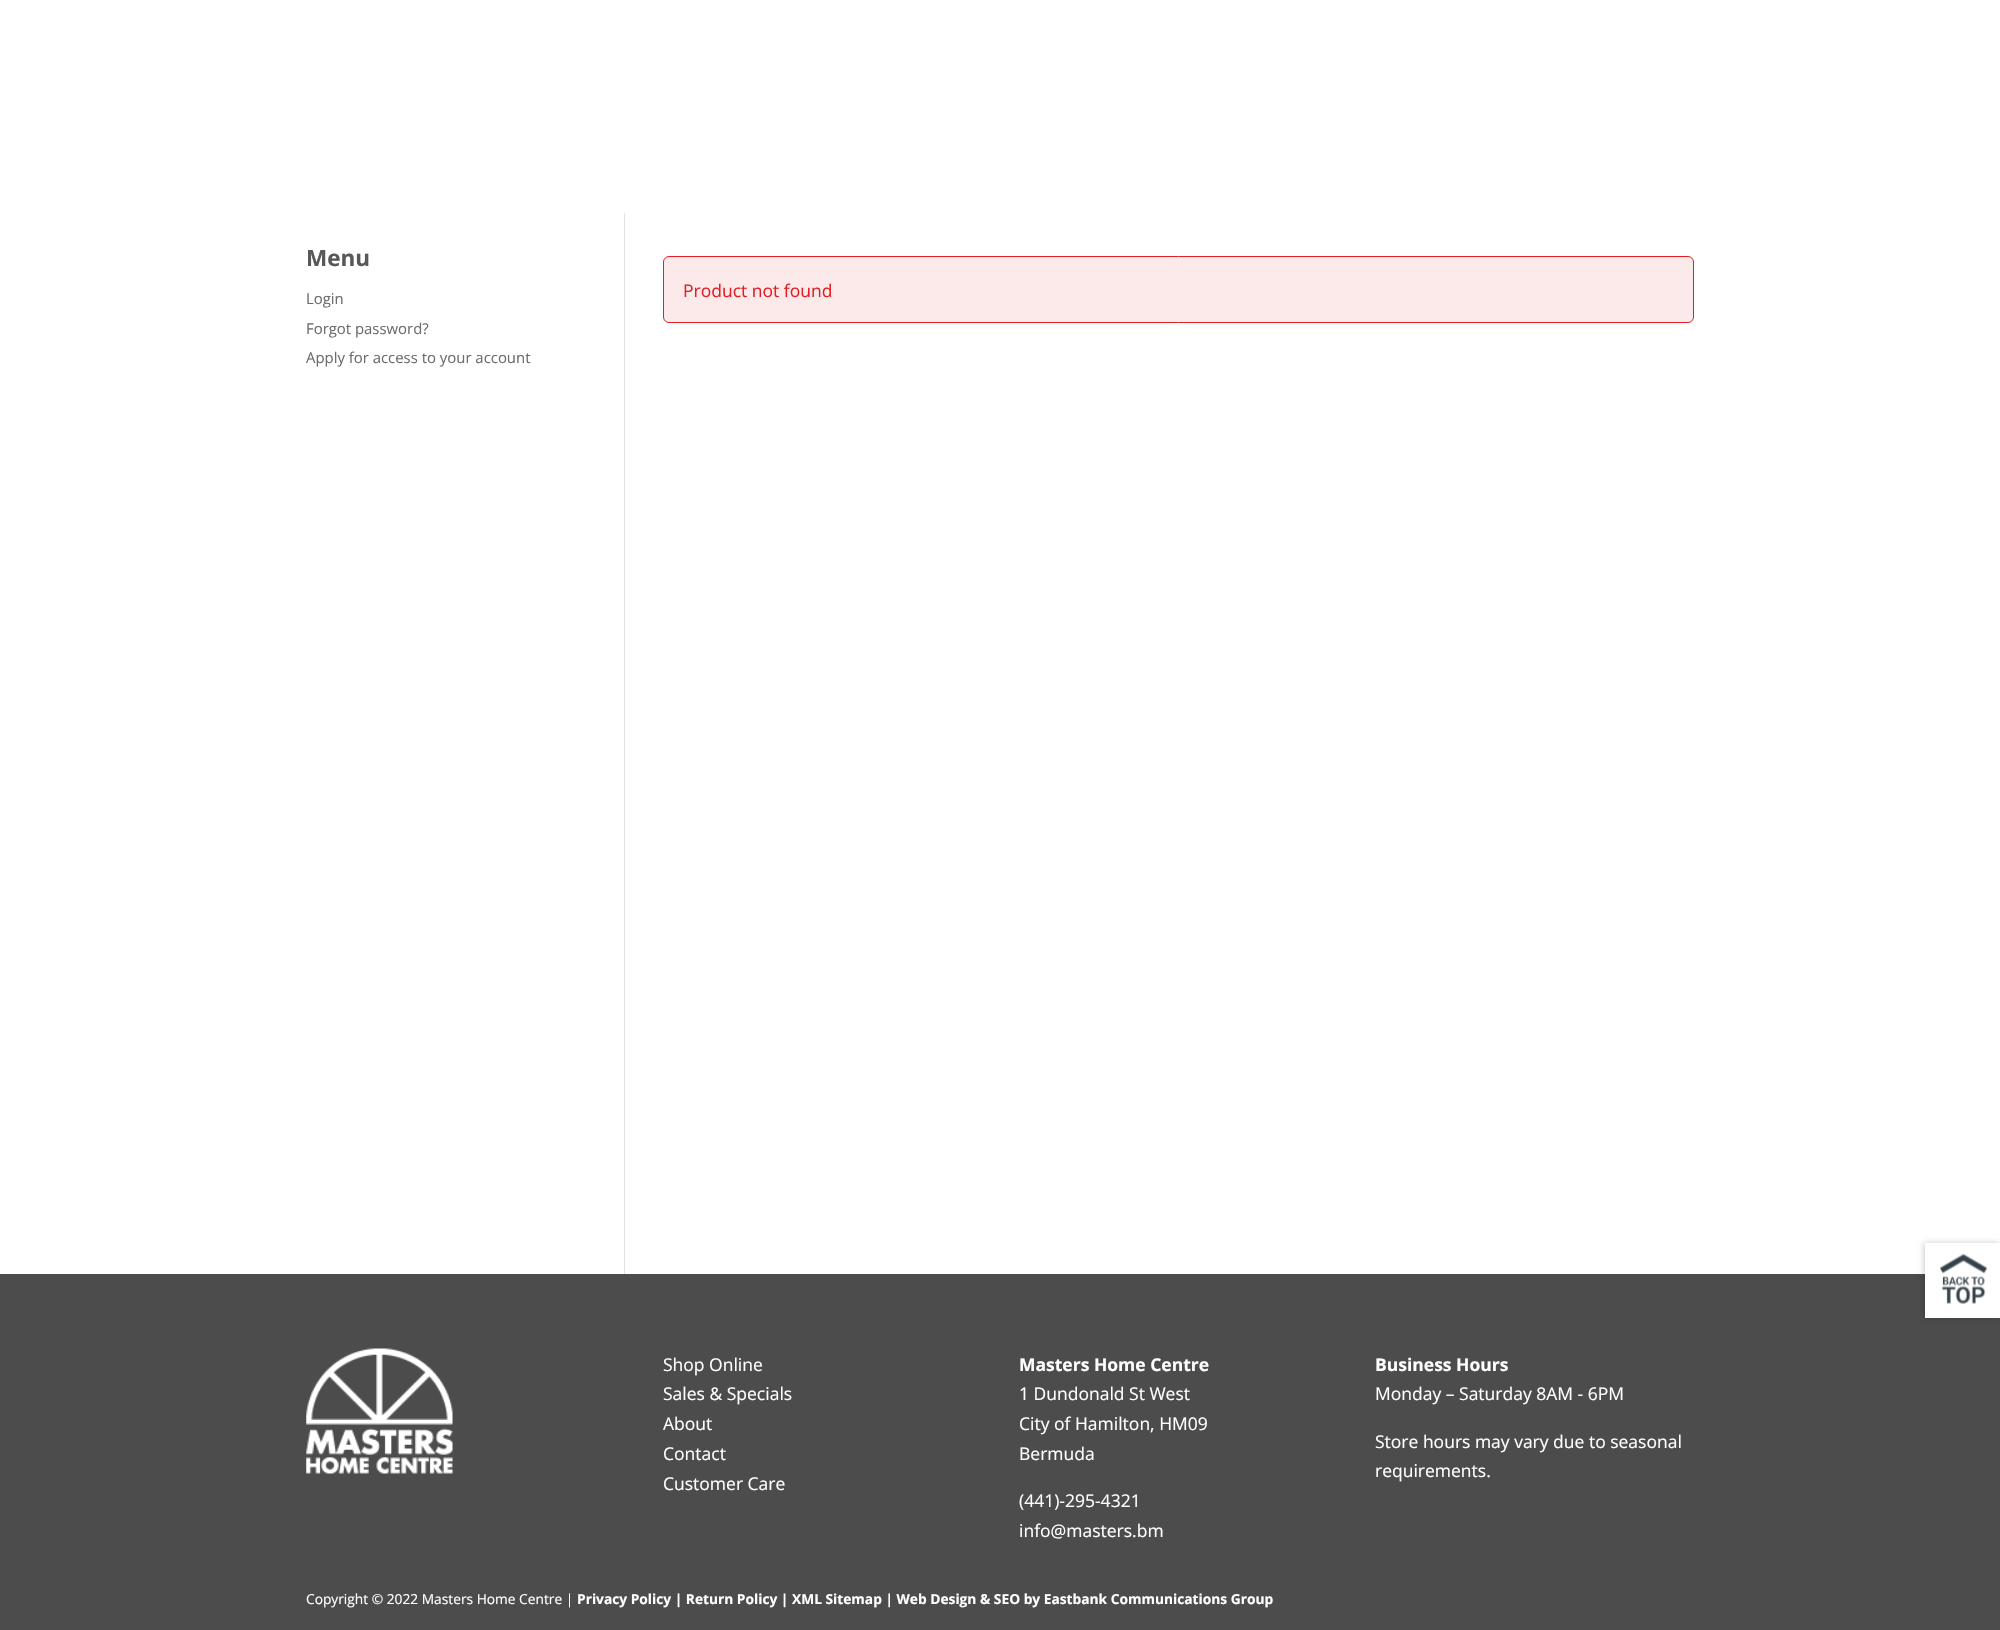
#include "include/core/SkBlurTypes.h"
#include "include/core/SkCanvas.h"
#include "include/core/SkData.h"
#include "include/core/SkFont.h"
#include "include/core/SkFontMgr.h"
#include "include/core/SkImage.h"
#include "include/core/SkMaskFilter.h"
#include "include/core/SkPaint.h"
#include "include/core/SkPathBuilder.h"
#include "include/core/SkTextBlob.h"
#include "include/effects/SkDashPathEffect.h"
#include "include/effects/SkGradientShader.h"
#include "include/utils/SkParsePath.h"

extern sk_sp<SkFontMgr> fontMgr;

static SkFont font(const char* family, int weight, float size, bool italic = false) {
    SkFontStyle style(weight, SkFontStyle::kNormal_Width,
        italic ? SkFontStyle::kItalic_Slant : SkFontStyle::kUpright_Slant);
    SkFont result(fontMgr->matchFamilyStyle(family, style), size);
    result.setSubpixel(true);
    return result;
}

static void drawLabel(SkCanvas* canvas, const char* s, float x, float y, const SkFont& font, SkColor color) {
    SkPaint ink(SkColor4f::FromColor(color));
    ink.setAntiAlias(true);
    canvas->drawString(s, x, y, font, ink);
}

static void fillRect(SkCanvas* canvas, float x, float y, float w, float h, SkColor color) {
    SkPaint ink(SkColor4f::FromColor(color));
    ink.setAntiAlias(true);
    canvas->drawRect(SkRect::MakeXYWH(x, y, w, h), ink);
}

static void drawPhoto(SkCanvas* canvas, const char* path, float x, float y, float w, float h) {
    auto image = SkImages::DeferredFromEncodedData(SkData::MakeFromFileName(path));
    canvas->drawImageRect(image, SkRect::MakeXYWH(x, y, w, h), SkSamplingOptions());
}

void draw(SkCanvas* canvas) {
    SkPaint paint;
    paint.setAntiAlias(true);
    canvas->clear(0xFFFFFFFF);
    fillRect(canvas, 624, 213, 1, 1061, 0xFFE2E2E2);
    SkFont font1 = font("Open Sans", 700, 22.5f);
    drawLabel(canvas, "Menu", 306, 266, font1, 0xFF58585A);
    SkFont font2 = font("Open Sans", 400, 14.9f);
    drawLabel(canvas, "Login", 306, 304, font2, 0xFF6C6C6C);
    drawLabel(canvas, "Forgot password?", 306, 334, font2, 0xFF6C6C6C);
    drawLabel(canvas, "Apply for access to your account", 306, 363, font2, 0xFF6C6C6C);
    paint.setColor(0xFFFCE9E9);
    canvas->drawRoundRect(SkRect::MakeXYWH(663.5f, 256.5f, 1030, 66), 5.5f, 5.5f, paint);
    paint.setStroke(true);
    paint.setStrokeWidth(1);
    paint.setColor(0xFFE21E25);
    canvas->drawRoundRect(SkRect::MakeXYWH(663.5f, 256.5f, 1030, 66), 5.5f, 5.5f, paint);
    SkFont font3 = font("Open Sans", 400, 17.5f);
    drawLabel(canvas, "Product not found", 683, 297, font3, 0xFFE21E25);
    fillRect(canvas, 0, 1274, 2000, 356, 0xFF4C4C4C);
    paint.setStroke(false);
    paint.setColor(0x33000000);
    paint.setMaskFilter(SkMaskFilter::MakeBlur(kNormal_SkBlurStyle, 3));
    canvas->drawRect(SkRect::MakeXYWH(1924, 1243, 75, 75), paint);
    paint.setMaskFilter(nullptr);
    fillRect(canvas, 1925, 1243, 75, 75, 0xFFFFFFFF);
    drawPhoto(canvas, "assets/img1.png", 1940, 1253, 48, 51);
    drawPhoto(canvas, "assets/img2.png", 306, 1348, 147, 126);
    drawLabel(canvas, "Shop Online", 663, 1371, font3, 0xFFFFFFFF);
    drawLabel(canvas, "Sales & Specials", 663, 1400, font3, 0xFFFFFFFF);
    drawLabel(canvas, "About", 663, 1430, font3, 0xFFFFFFFF);
    drawLabel(canvas, "Contact", 663, 1460, font3, 0xFFFFFFFF);
    drawLabel(canvas, "Customer Care", 663, 1490, font3, 0xFFFFFFFF);
    SkFont font4 = font("Open Sans", 700, 17.5f);
    drawLabel(canvas, "Masters Home Centre", 1019, 1371, font4, 0xFFFFFFFF);
    drawLabel(canvas, "1 Dundonald St West", 1019, 1400, font3, 0xFFFFFFFF);
    drawLabel(canvas, "City of Hamilton, HM09", 1019, 1430, font3, 0xFFFFFFFF);
    drawLabel(canvas, "Bermuda", 1019, 1460, font3, 0xFFFFFFFF);
    drawLabel(canvas, "(441)-295-4321", 1019, 1507, font3, 0xFFFFFFFF);
    drawLabel(canvas, "info@masters.bm", 1019, 1537, font3, 0xFFFFFFFF);
    drawLabel(canvas, "Business Hours", 1375, 1371, font4, 0xFFFFFFFF);
    drawLabel(canvas, "Monday – Saturday 8AM - 6PM", 1375, 1400, font3, 0xFFFFFFFF);
    drawLabel(canvas, "Store hours may vary due to seasonal", 1375, 1448, font3, 0xFFFFFFFF);
    drawLabel(canvas, "requirements.", 1375, 1477, font3, 0xFFFFFFFF);
    SkFont font5 = font("Open Sans", 400, 13.75f);
    drawLabel(canvas, "Copyright © 2022 Masters Home Centre |", 306, 1604, font5, 0xFFFFFFFF);
    SkFont font6 = font("Open Sans", 700, 13.75f);
    drawLabel(canvas, "Privacy Policy | Return Policy | XML Sitemap | Web Design & SEO by Eastbank Communications Group", 577, 1604, font6, 0xFFFFFFFF);
}
